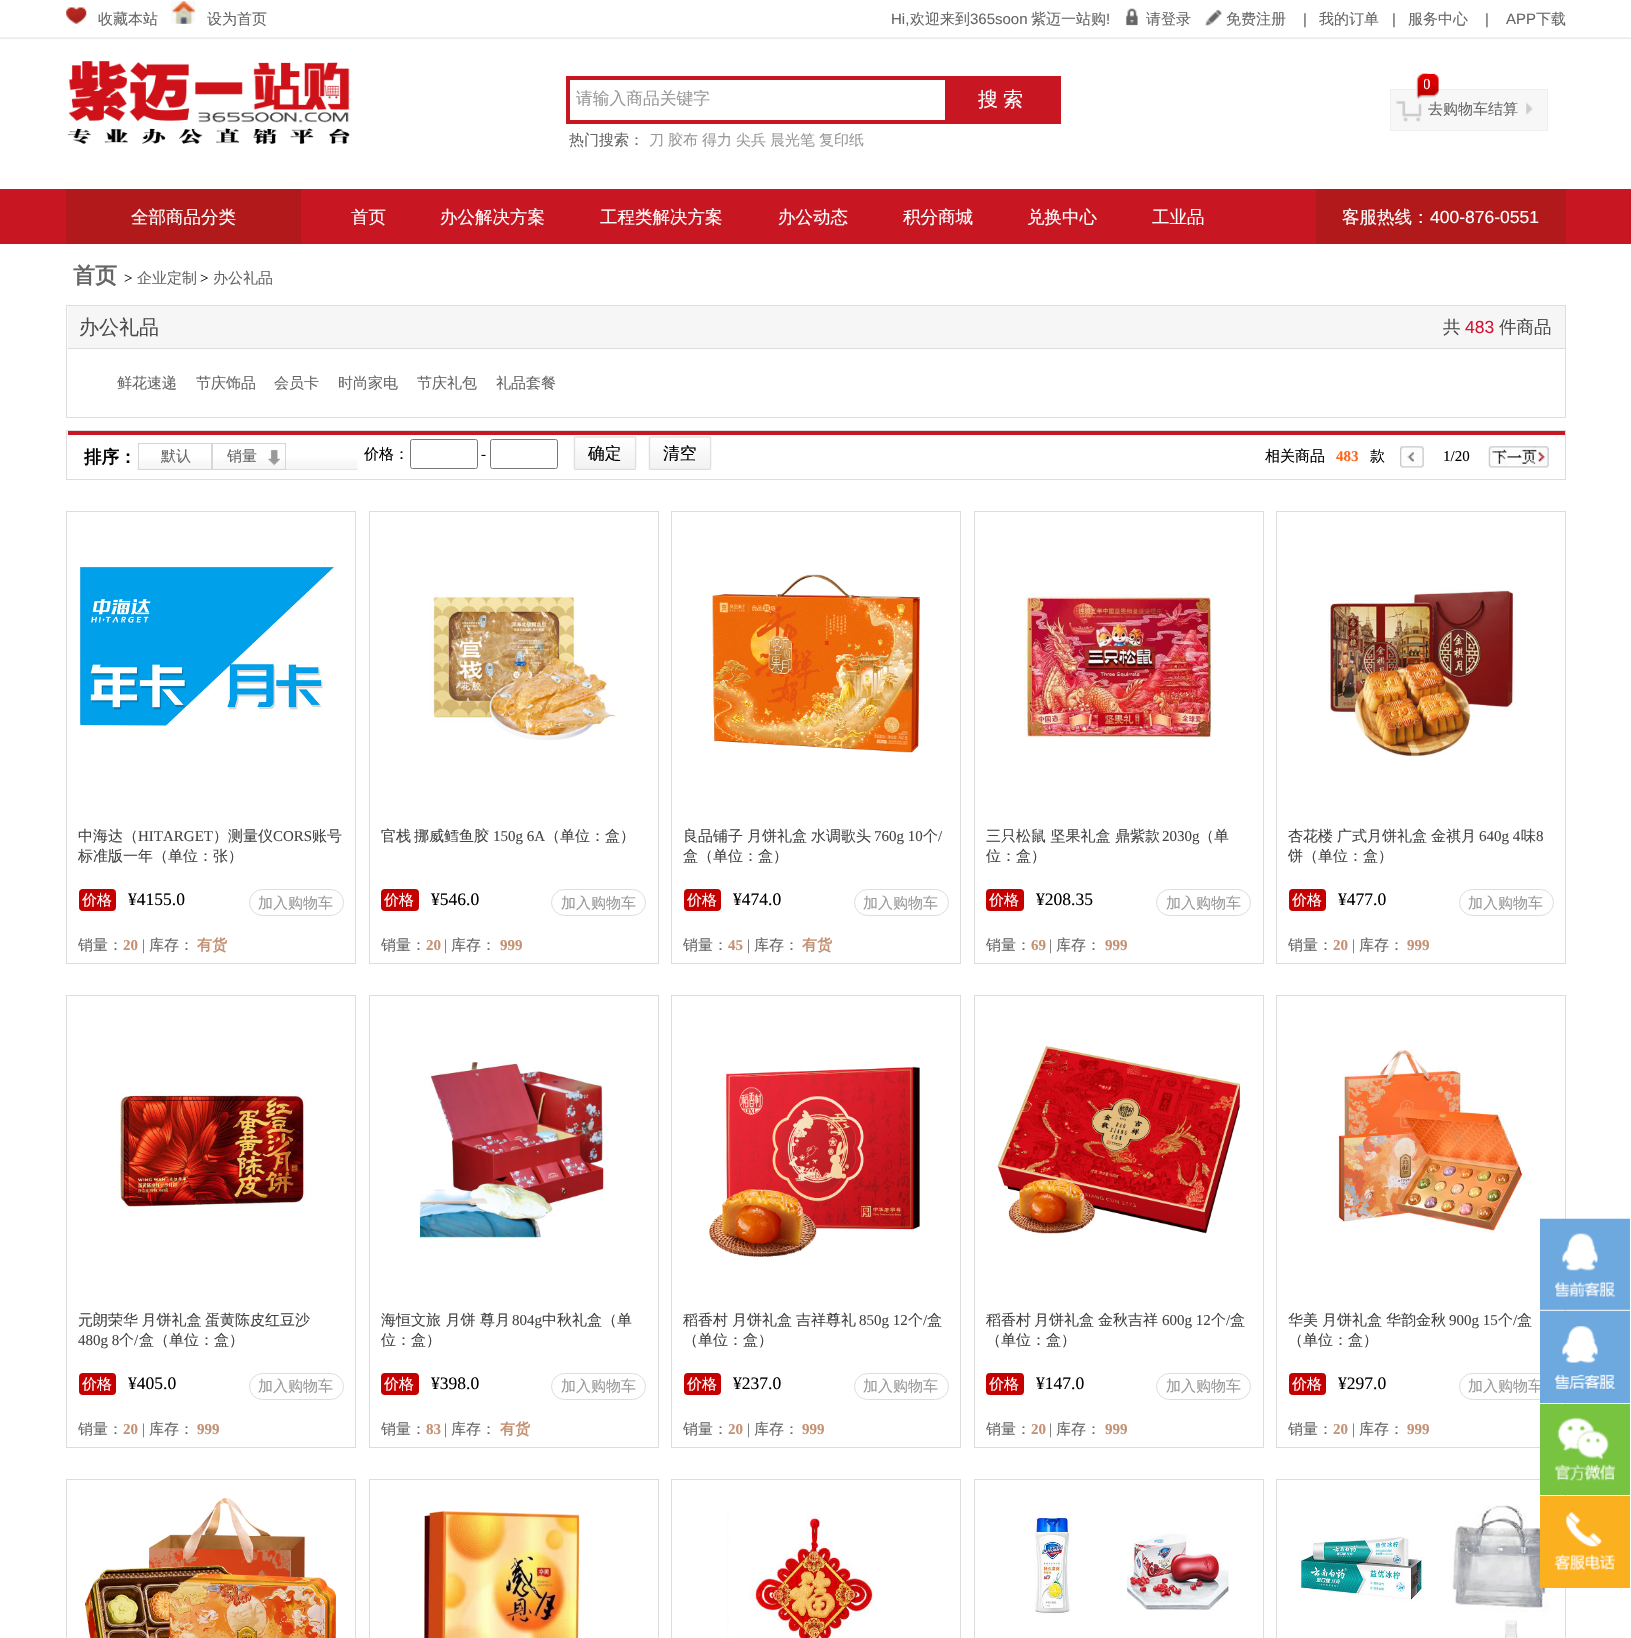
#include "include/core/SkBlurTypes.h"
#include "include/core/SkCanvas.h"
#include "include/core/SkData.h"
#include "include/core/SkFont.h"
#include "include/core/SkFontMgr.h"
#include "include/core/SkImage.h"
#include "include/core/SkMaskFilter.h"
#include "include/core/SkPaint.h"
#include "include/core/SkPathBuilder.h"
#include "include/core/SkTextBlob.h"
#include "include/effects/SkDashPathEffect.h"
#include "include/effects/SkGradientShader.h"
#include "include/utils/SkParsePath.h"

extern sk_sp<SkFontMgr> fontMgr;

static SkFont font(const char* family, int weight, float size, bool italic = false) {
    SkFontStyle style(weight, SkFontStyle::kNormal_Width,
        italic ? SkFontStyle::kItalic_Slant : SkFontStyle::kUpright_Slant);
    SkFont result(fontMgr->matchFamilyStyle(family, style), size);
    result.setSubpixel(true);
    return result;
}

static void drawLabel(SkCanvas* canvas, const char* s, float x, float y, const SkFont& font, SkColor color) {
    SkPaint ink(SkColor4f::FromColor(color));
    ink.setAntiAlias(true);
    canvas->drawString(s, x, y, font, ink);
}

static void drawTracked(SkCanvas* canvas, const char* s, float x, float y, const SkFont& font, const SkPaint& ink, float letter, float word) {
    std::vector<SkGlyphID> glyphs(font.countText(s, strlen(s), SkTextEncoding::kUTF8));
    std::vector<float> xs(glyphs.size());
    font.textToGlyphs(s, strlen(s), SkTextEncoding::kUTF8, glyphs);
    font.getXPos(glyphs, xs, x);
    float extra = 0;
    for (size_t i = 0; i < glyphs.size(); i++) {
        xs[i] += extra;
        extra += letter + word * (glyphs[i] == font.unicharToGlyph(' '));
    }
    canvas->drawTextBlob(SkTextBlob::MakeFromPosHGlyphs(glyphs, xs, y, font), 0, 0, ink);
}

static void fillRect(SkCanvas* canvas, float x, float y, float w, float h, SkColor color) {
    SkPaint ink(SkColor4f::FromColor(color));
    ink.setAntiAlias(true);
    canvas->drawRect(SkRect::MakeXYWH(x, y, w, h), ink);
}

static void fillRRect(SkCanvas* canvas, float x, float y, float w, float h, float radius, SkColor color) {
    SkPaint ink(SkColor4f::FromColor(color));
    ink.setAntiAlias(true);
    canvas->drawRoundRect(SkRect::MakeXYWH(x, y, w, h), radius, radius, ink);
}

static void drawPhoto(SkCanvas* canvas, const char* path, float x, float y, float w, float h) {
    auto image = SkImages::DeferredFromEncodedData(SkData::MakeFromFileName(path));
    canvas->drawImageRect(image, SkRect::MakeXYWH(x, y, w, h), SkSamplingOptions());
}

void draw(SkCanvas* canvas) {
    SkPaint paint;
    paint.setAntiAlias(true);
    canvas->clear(0xFFFFFFFF);
    drawPhoto(canvas, "assets/img1.png", 0, 37, 1631, 2);
    drawPhoto(canvas, "assets/img2.png", 66, 7, 21, 17);
    SkFont font1 = font("WenQuanYi Zen Hei", 500, 15);
    drawLabel(canvas, "收藏本站", 98, 24, font1, 0xFF666666);
    drawPhoto(canvas, "assets/img3.png", 171, 1, 24, 23);
    drawLabel(canvas, "设为首页", 207, 24, font1, 0xFF666666);
    SkFont font2 = font("Liberation Sans", 400, 15);
    drawLabel(canvas, "Hi,", 891, 24, font2, 0xFF666666);
    drawLabel(canvas, "欢迎来到", 910, 24, font1, 0xFF666666);
    drawLabel(canvas, "365soon", 970, 24, font2, 0xFF666666);
    drawLabel(canvas, "紫迈一站购", 1031, 24, font1, 0xFF666666);
    drawLabel(canvas, "!", 1106, 24, font2, 0xFF666666);
    drawPhoto(canvas, "assets/img4.png", 1126, 8, 12, 18);
    drawLabel(canvas, "请登录", 1146, 24, font1, 0xFF666666);
    drawPhoto(canvas, "assets/img5.png", 1205, 9, 17, 18);
    drawLabel(canvas, "免费注册", 1226, 24, font1, 0xFF666666);
    drawLabel(canvas, "|", 1303, 24, font2, 0xFF666666);
    drawLabel(canvas, "我的订单", 1319, 24, font1, 0xFF666666);
    drawLabel(canvas, "|", 1392, 24, font2, 0xFF666666);
    drawLabel(canvas, "服务中心", 1408, 24, font1, 0xFF666666);
    drawLabel(canvas, "|", 1485, 24, font2, 0xFF666666);
    drawLabel(canvas, "APP", 1506, 24, font2, 0xFF666666);
    drawLabel(canvas, "下载", 1536, 24, font1, 0xFF666666);
    drawPhoto(canvas, "assets/img6.png", 67, 61, 283, 83);
    paint.setStroke(true);
    paint.setStrokeWidth(4);
    paint.setColor(0xFFC81623);
    canvas->drawRect(SkRect::MakeXYWH(568, 78, 491, 44), paint);
    SkFont font3 = font("WenQuanYi Zen Hei", 500, 16.75f);
    drawLabel(canvas, "请输入商品关键字", 576, 104, font3, 0xFF999999);
    fillRect(canvas, 945, 80, 112, 40, 0xFFC81623);
    SkFont font4 = font("WenQuanYi Zen Hei", 500, 20);
    paint.setStroke(false);
    paint.setColor(0xFFFFFFFF);
    drawTracked(canvas, "搜 索", 978, 106, font4, paint, 0, -1);
    drawLabel(canvas, "热门搜索：", 569, 145, font1, 0xFF666666);
    drawLabel(canvas, "刀", 649, 145, font1, 0xFF999999);
    drawLabel(canvas, "胶布", 668, 145, font1, 0xFF999999);
    drawLabel(canvas, "得力", 702, 145, font1, 0xFF999999);
    drawLabel(canvas, "尖兵", 736, 145, font1, 0xFF999999);
    drawLabel(canvas, "晨光笔", 770, 145, font1, 0xFF999999);
    drawLabel(canvas, "复印纸", 819, 145, font1, 0xFF999999);
    paint.setColor(0xFFF7F7F7);
    canvas->drawRect(SkRect::MakeXYWH(1390.5f, 89.5f, 157, 41), paint);
    paint.setStroke(true);
    paint.setStrokeWidth(1);
    paint.setColor(0xFFEFEFEF);
    canvas->drawRect(SkRect::MakeXYWH(1390.5f, 89.5f, 157, 41), paint);
    drawPhoto(canvas, "assets/img7.png", 1416, 73, 12, 26);
    drawPhoto(canvas, "assets/img8.png", 1423, 73, 16, 25);
    canvas->save();
    canvas->clipRect(SkRect::MakeXYWH(1424, 74, 15, 25));
    SkFont font5 = font("Liberation Serif", 400, 15);
    drawLabel(canvas, "0", 1423, 89, font5, 0xFFFFFFFF);
    canvas->restore();
    drawPhoto(canvas, "assets/img9.png", 1396, 101, 26, 21);
    drawLabel(canvas, "去购物车结算", 1428, 114, font1, 0xFF666666);
    drawPhoto(canvas, "assets/img10.png", 1526, 102, 7, 13);
    fillRect(canvas, 0, 189, 1631, 55, 0xFFC81623);
    fillRect(canvas, 66, 189, 235, 55, 0xFFB1191A);
    SkFont font6 = font("WenQuanYi Zen Hei", 500, 17.5f);
    drawLabel(canvas, "全部商品分类", 131, 223, font6, 0xFFFFFFFF);
    drawLabel(canvas, "首页", 351, 223, font6, 0xFFFFFFFF);
    drawLabel(canvas, "办公解决方案", 440, 223, font6, 0xFFFFFFFF);
    drawLabel(canvas, "工程类解决方案", 600, 223, font6, 0xFFFFFFFF);
    drawLabel(canvas, "办公动态", 778, 223, font6, 0xFFFFFFFF);
    drawLabel(canvas, "积分商城", 903, 223, font6, 0xFFFFFFFF);
    drawLabel(canvas, "兑换中心", 1027, 223, font6, 0xFFFFFFFF);
    drawLabel(canvas, "工业品", 1152, 223, font6, 0xFFFFFFFF);
    fillRect(canvas, 1316, 189, 250, 55, 0xFFB1191A);
    drawLabel(canvas, "客服热线：", 1342, 223, font6, 0xFFFFFFFF);
    SkFont font7 = font("Liberation Sans", 400, 17.5f);
    drawLabel(canvas, "400-876-0551", 1430, 223, font7, 0xFFFFFFFF);
    SkFont font8 = font("WenQuanYi Zen Hei", 700, 22);
    drawLabel(canvas, "首页", 73, 283, font8, 0xFF666666);
    drawLabel(canvas, ">", 124, 283, font5, 0xFF000000);
    drawLabel(canvas, "企业定制", 137, 283, font1, 0xFF666666);
    drawLabel(canvas, ">", 200, 283, font5, 0xFF000000);
    drawLabel(canvas, "办公礼品", 213, 283, font1, 0xFF666666);
    paint.setColor(0xFFDDDDDD);
    canvas->drawRect(SkRect::MakeXYWH(66.5f, 305.5f, 1499, 112), paint);
    fillRect(canvas, 68, 306, 1497, 42, 0xFFF6F6F6);
    drawLabel(canvas, "办公礼品", 79, 334, font4, 0xFF4C4C4C);
    drawLabel(canvas, "共", 1443, 333, font6, 0xFF4C4C4C);
    drawLabel(canvas, "483", 1465, 333, font7, 0xFFD71635);
    drawLabel(canvas, "件商品", 1499, 333, font6, 0xFF4C4C4C);
    fillRect(canvas, 68, 348, 1497, 1, 0xFFDDDDDD);
    drawLabel(canvas, "鲜花速递", 117, 388, font1, 0xFF666666);
    drawLabel(canvas, "节庆饰品", 196, 388, font1, 0xFF666666);
    drawLabel(canvas, "会员卡", 274, 388, font1, 0xFF666666);
    drawLabel(canvas, "时尚家电", 338, 388, font1, 0xFF666666);
    drawLabel(canvas, "节庆礼包", 417, 388, font1, 0xFF666666);
    drawLabel(canvas, "礼品套餐", 496, 388, font1, 0xFF666666);
    canvas->drawRect(SkRect::MakeXYWH(66.5f, 430.5f, 1499, 49), paint);
    fillRect(canvas, 68, 431, 1497, 4, 0xFFC81623);
    SkFont font9 = font("WenQuanYi Zen Hei", 700, 17.5f);
    drawLabel(canvas, "排序：", 84, 463, font9, 0xFF000000);
    drawPhoto(canvas, "assets/img11.png", 137, 459, 221, 11);
    paint.setColor(0xFFD7D7D7);
    canvas->drawRect(SkRect::MakeXYWH(138.5f, 443.5f, 74, 26), paint);
    drawLabel(canvas, "默认", 161, 461, font1, 0xFF666666);
    drawPhoto(canvas, "assets/img12.png", 268, 449, 13, 17);
    canvas->drawRect(SkRect::MakeXYWH(211.5f, 443.5f, 74, 26), paint);
    drawLabel(canvas, "销量", 227, 461, font1, 0xFF666666);
    drawLabel(canvas, "价格：", 364, 459, font1, 0xFF000000);
    paint.setColor(0xFF767676);
    canvas->drawRoundRect(SkRect::MakeXYWH(410.5f, 439.5f, 67, 29), 2, 2, paint);
    drawLabel(canvas, "-", 481, 459, font5, 0xFF000000);
    canvas->drawRoundRect(SkRect::MakeXYWH(490.5f, 439.5f, 67, 29), 2, 2, paint);
    drawPhoto(canvas, "assets/img13.png", 573, 436, 64, 34);
    drawLabel(canvas, "确定", 588, 459, font3, 0xFF000000);
    drawPhoto(canvas, "assets/img14.png", 648, 436, 64, 34);
    drawLabel(canvas, "清空", 663, 459, font3, 0xFF000000);
    drawLabel(canvas, "相关商品", 1265, 461, font1, 0xFF000000);
    SkFont font10 = font("Liberation Serif", 700, 15);
    drawLabel(canvas, "483", 1336, 461, font10, 0xFFFF651E);
    drawLabel(canvas, "款", 1370, 461, font1, 0xFF000000);
    drawPhoto(canvas, "assets/img15.png", 1400, 446, 24, 22);
    drawLabel(canvas, "1/20", 1443, 461, font5, 0xFF000000);
    drawPhoto(canvas, "assets/img16.png", 1488, 446, 61, 22);
    paint.setColor(0xFFDDDDDD);
    canvas->drawRect(SkRect::MakeXYWH(66.5f, 511.5f, 289, 452), paint);
    drawPhoto(canvas, "assets/img17.png", 80, 565, 255, 161);
    drawLabel(canvas, "中海达（", 78, 841, font1, 0xFF444444);
    drawLabel(canvas, "HITARGET", 138, 841, font5, 0xFF444444);
    drawLabel(canvas, "）测量仪", 213, 841, font1, 0xFF444444);
    drawLabel(canvas, "CORS", 273, 841, font5, 0xFF444444);
    drawLabel(canvas, "账号", 312, 841, font1, 0xFF444444);
    drawLabel(canvas, "标准版一年（单位：张）", 78, 861, font1, 0xFF444444);
    fillRRect(canvas, 79, 889, 37, 22, 4, 0xFFC40000);
    drawLabel(canvas, "价格", 82, 905, font1, 0xFFFFFFFF);
    SkFont font11 = font("Liberation Serif", 400, 17.5f);
    drawLabel(canvas, "¥4155.0", 128, 905, font11, 0xFF000000);
    canvas->drawRoundRect(SkRect::MakeXYWH(249.5f, 889.5f, 94, 26), 13, 13, paint);
    drawLabel(canvas, "加入购物车", 258, 908, font1, 0xFF999999);
    drawLabel(canvas, "销量：", 78, 950, font1, 0xFF666666);
    drawLabel(canvas, "20", 123, 950, font10, 0xFFC49173);
    drawLabel(canvas, "|", 142, 950, font5, 0xFF666666);
    drawLabel(canvas, "库存：", 149, 950, font1, 0xFF666666);
    SkFont font12 = font("WenQuanYi Zen Hei", 700, 15);
    drawLabel(canvas, "有货", 197, 950, font12, 0xFFC49173);
    canvas->drawRect(SkRect::MakeXYWH(369.5f, 511.5f, 289, 452), paint);
    drawPhoto(canvas, "assets/img18.png", 430, 594, 187, 146);
    drawLabel(canvas, "官栈", 381, 841, font1, 0xFF444444);
    drawLabel(canvas, "挪威鳕鱼胶", 414, 841, font1, 0xFF444444);
    drawLabel(canvas, "150g 6A", 493, 841, font5, 0xFF444444);
    drawLabel(canvas, "（单位：盒）", 545, 841, font1, 0xFF444444);
    fillRRect(canvas, 381, 889, 38, 22, 4, 0xFFC40000);
    drawLabel(canvas, "价格", 384, 905, font1, 0xFFFFFFFF);
    drawLabel(canvas, "¥546.0", 431, 905, font11, 0xFF000000);
    canvas->drawRoundRect(SkRect::MakeXYWH(551.5f, 889.5f, 94, 26), 13, 13, paint);
    drawLabel(canvas, "加入购物车", 561, 908, font1, 0xFF999999);
    drawLabel(canvas, "销量：", 381, 950, font1, 0xFF666666);
    drawLabel(canvas, "20", 426, 950, font10, 0xFFC49173);
    drawLabel(canvas, "|", 444, 950, font5, 0xFF666666);
    drawLabel(canvas, "库存：", 451, 950, font1, 0xFF666666);
    drawLabel(canvas, "999", 500, 950, font10, 0xFFC49173);
    canvas->drawRect(SkRect::MakeXYWH(671.5f, 511.5f, 289, 452), paint);
    drawPhoto(canvas, "assets/img19.png", 711, 574, 210, 179);
    drawLabel(canvas, "良品铺子", 683, 841, font1, 0xFF444444);
    drawLabel(canvas, "月饼礼盒", 747, 841, font1, 0xFF444444);
    drawLabel(canvas, "水调歌头", 811, 841, font1, 0xFF444444);
    drawLabel(canvas, "760g 10", 874, 841, font5, 0xFF444444);
    drawLabel(canvas, "个", 923, 841, font1, 0xFF444444);
    drawLabel(canvas, "/", 938, 841, font5, 0xFF444444);
    drawLabel(canvas, "盒（单位：盒）", 683, 861, font1, 0xFF444444);
    fillRRect(canvas, 684, 889, 37, 22, 4, 0xFFC40000);
    drawLabel(canvas, "价格", 687, 905, font1, 0xFFFFFFFF);
    drawLabel(canvas, "¥474.0", 733, 905, font11, 0xFF000000);
    canvas->drawRoundRect(SkRect::MakeXYWH(854.5f, 889.5f, 94, 26), 13, 13, paint);
    drawLabel(canvas, "加入购物车", 863, 908, font1, 0xFF999999);
    drawLabel(canvas, "销量：", 683, 950, font1, 0xFF666666);
    drawLabel(canvas, "45", 728, 950, font10, 0xFFC49173);
    drawLabel(canvas, "|", 747, 950, font5, 0xFF666666);
    drawLabel(canvas, "库存：", 754, 950, font1, 0xFF666666);
    drawLabel(canvas, "有货", 802, 950, font12, 0xFFC49173);
    canvas->drawRect(SkRect::MakeXYWH(974.5f, 511.5f, 289, 452), paint);
    drawPhoto(canvas, "assets/img20.png", 1024, 587, 189, 152);
    drawLabel(canvas, "三只松鼠 坚果礼盒 鼎紫款", 986, 841, font1, 0xFF444444);
    drawLabel(canvas, "2030g", 1162, 841, font5, 0xFF444444);
    drawLabel(canvas, "（单", 1199, 841, font1, 0xFF444444);
    drawLabel(canvas, "位：盒）", 986, 861, font1, 0xFF444444);
    fillRRect(canvas, 986, 889, 38, 22, 4, 0xFFC40000);
    drawLabel(canvas, "价格", 989, 905, font1, 0xFFFFFFFF);
    drawLabel(canvas, "¥208.35", 1036, 905, font11, 0xFF000000);
    canvas->drawRoundRect(SkRect::MakeXYWH(1156.5f, 889.5f, 94, 26), 13, 13, paint);
    drawLabel(canvas, "加入购物车", 1166, 908, font1, 0xFF999999);
    drawLabel(canvas, "销量：", 986, 950, font1, 0xFF666666);
    drawLabel(canvas, "69", 1031, 950, font10, 0xFFC49173);
    drawLabel(canvas, "|", 1049, 950, font5, 0xFF666666);
    drawLabel(canvas, "库存：", 1056, 950, font1, 0xFF666666);
    drawLabel(canvas, "999", 1105, 950, font10, 0xFFC49173);
    canvas->drawRect(SkRect::MakeXYWH(1276.5f, 511.5f, 289, 452), paint);
    drawPhoto(canvas, "assets/img21.png", 1328, 589, 188, 172);
    drawLabel(canvas, "杏花楼", 1288, 841, font1, 0xFF444444);
    drawLabel(canvas, "广式月饼礼盒", 1337, 841, font1, 0xFF444444);
    drawLabel(canvas, "金祺月", 1431, 841, font1, 0xFF444444);
    drawLabel(canvas, "640g 4", 1479, 841, font5, 0xFF444444);
    drawLabel(canvas, "味", 1521, 841, font1, 0xFF444444);
    drawLabel(canvas, "8", 1536, 841, font5, 0xFF444444);
    drawLabel(canvas, "饼（单位：盒）", 1288, 861, font1, 0xFF444444);
    fillRRect(canvas, 1289, 889, 37, 22, 4, 0xFFC40000);
    drawLabel(canvas, "价格", 1292, 905, font1, 0xFFFFFFFF);
    drawLabel(canvas, "¥477.0", 1338, 905, font11, 0xFF000000);
    canvas->drawRoundRect(SkRect::MakeXYWH(1459.5f, 889.5f, 94, 26), 13, 13, paint);
    drawLabel(canvas, "加入购物车", 1468, 908, font1, 0xFF999999);
    drawLabel(canvas, "销量：", 1288, 950, font1, 0xFF666666);
    drawLabel(canvas, "20", 1333, 950, font10, 0xFFC49173);
    drawLabel(canvas, "|", 1352, 950, font5, 0xFF666666);
    drawLabel(canvas, "库存：", 1359, 950, font1, 0xFF666666);
    drawLabel(canvas, "999", 1407, 950, font10, 0xFFC49173);
    canvas->drawRect(SkRect::MakeXYWH(66.5f, 995.5f, 289, 452), paint);
    drawPhoto(canvas, "assets/img22.png", 118, 1094, 188, 117);
    paint.setStroke(false);
    paint.setColor(0xFF444444);
    drawTracked(canvas, "元朗荣华 月饼礼盒 蛋黄陈皮红豆沙", 78, 1325, font1, paint, 0, -1);
    drawLabel(canvas, "480g 8", 78, 1345, font5, 0xFF444444);
    drawLabel(canvas, "个", 119, 1345, font1, 0xFF444444);
    drawLabel(canvas, "/", 134, 1345, font5, 0xFF444444);
    drawLabel(canvas, "盒（单位：盒）", 139, 1345, font1, 0xFF444444);
    fillRRect(canvas, 79, 1373, 37, 22, 4, 0xFFC40000);
    drawLabel(canvas, "价格", 82, 1389, font1, 0xFFFFFFFF);
    drawLabel(canvas, "¥405.0", 128, 1389, font11, 0xFF000000);
    paint.setStroke(true);
    paint.setColor(0xFFDDDDDD);
    canvas->drawRoundRect(SkRect::MakeXYWH(249.5f, 1373.5f, 94, 26), 13, 13, paint);
    drawLabel(canvas, "加入购物车", 258, 1391, font1, 0xFF999999);
    drawLabel(canvas, "销量：", 78, 1434, font1, 0xFF666666);
    drawLabel(canvas, "20", 123, 1434, font10, 0xFFC49173);
    drawLabel(canvas, "|", 142, 1434, font5, 0xFF666666);
    drawLabel(canvas, "库存：", 149, 1434, font1, 0xFF666666);
    drawLabel(canvas, "999", 197, 1434, font10, 0xFFC49173);
    canvas->drawRect(SkRect::MakeXYWH(369.5f, 995.5f, 289, 452), paint);
    drawPhoto(canvas, "assets/img23.png", 419, 1061, 187, 178);
    drawLabel(canvas, "海恒文旅 月饼 尊月", 381, 1325, font1, 0xFF444444);
    drawLabel(canvas, "804g", 512, 1325, font5, 0xFF444444);
    drawLabel(canvas, "中秋礼盒（单", 542, 1325, font1, 0xFF444444);
    drawLabel(canvas, "位：盒）", 381, 1345, font1, 0xFF444444);
    fillRRect(canvas, 381, 1373, 38, 22, 4, 0xFFC40000);
    drawLabel(canvas, "价格", 384, 1389, font1, 0xFFFFFFFF);
    drawLabel(canvas, "¥398.0", 431, 1389, font11, 0xFF000000);
    canvas->drawRoundRect(SkRect::MakeXYWH(551.5f, 1373.5f, 94, 26), 13, 13, paint);
    drawLabel(canvas, "加入购物车", 561, 1391, font1, 0xFF999999);
    drawLabel(canvas, "销量：", 381, 1434, font1, 0xFF666666);
    drawLabel(canvas, "83", 426, 1434, font10, 0xFFC49173);
    drawLabel(canvas, "|", 444, 1434, font5, 0xFF666666);
    drawLabel(canvas, "库存：", 451, 1434, font1, 0xFF666666);
    drawLabel(canvas, "有货", 500, 1434, font12, 0xFFC49173);
    canvas->drawRect(SkRect::MakeXYWH(671.5f, 995.5f, 289, 452), paint);
    drawPhoto(canvas, "assets/img24.png", 709, 1066, 211, 191);
    drawLabel(canvas, "稻香村", 683, 1325, font1, 0xFF444444);
    drawLabel(canvas, "月饼礼盒", 732, 1325, font1, 0xFF444444);
    drawLabel(canvas, "吉祥尊礼", 796, 1325, font1, 0xFF444444);
    drawLabel(canvas, "850g 12", 859, 1325, font5, 0xFF444444);
    drawLabel(canvas, "个", 908, 1325, font1, 0xFF444444);
    drawLabel(canvas, "/", 923, 1325, font5, 0xFF444444);
    drawLabel(canvas, "盒", 927, 1325, font1, 0xFF444444);
    drawLabel(canvas, "（单位：盒）", 683, 1345, font1, 0xFF444444);
    fillRRect(canvas, 684, 1373, 37, 22, 4, 0xFFC40000);
    drawLabel(canvas, "价格", 687, 1389, font1, 0xFFFFFFFF);
    drawLabel(canvas, "¥237.0", 733, 1389, font11, 0xFF000000);
    canvas->drawRoundRect(SkRect::MakeXYWH(854.5f, 1373.5f, 94, 26), 13, 13, paint);
    drawLabel(canvas, "加入购物车", 863, 1391, font1, 0xFF999999);
    drawLabel(canvas, "销量：", 683, 1434, font1, 0xFF666666);
    drawLabel(canvas, "20", 728, 1434, font10, 0xFFC49173);
    drawLabel(canvas, "|", 747, 1434, font5, 0xFF666666);
    drawLabel(canvas, "库存：", 754, 1434, font1, 0xFF666666);
    drawLabel(canvas, "999", 802, 1434, font10, 0xFFC49173);
    canvas->drawRect(SkRect::MakeXYWH(974.5f, 995.5f, 289, 452), paint);
    drawPhoto(canvas, "assets/img25.png", 997, 1046, 244, 188);
    drawLabel(canvas, "稻香村", 986, 1325, font1, 0xFF444444);
    drawLabel(canvas, "月饼礼盒", 1034, 1325, font1, 0xFF444444);
    drawLabel(canvas, "金秋吉祥", 1098, 1325, font1, 0xFF444444);
    drawLabel(canvas, "600g 12", 1162, 1325, font5, 0xFF444444);
    drawLabel(canvas, "个", 1211, 1325, font1, 0xFF444444);
    drawLabel(canvas, "/", 1226, 1325, font5, 0xFF444444);
    drawLabel(canvas, "盒", 1230, 1325, font1, 0xFF444444);
    drawLabel(canvas, "（单位：盒）", 986, 1345, font1, 0xFF444444);
    fillRRect(canvas, 986, 1373, 38, 22, 4, 0xFFC40000);
    drawLabel(canvas, "价格", 989, 1389, font1, 0xFFFFFFFF);
    drawLabel(canvas, "¥147.0", 1036, 1389, font11, 0xFF000000);
    canvas->drawRoundRect(SkRect::MakeXYWH(1156.5f, 1373.5f, 94, 26), 13, 13, paint);
    drawLabel(canvas, "加入购物车", 1166, 1391, font1, 0xFF999999);
    drawLabel(canvas, "销量：", 986, 1434, font1, 0xFF666666);
    drawLabel(canvas, "20", 1031, 1434, font10, 0xFFC49173);
    drawLabel(canvas, "|", 1049, 1434, font5, 0xFF666666);
    drawLabel(canvas, "库存：", 1056, 1434, font1, 0xFF666666);
    drawLabel(canvas, "999", 1105, 1434, font10, 0xFFC49173);
    canvas->drawRect(SkRect::MakeXYWH(1276.5f, 995.5f, 289, 452), paint);
    drawPhoto(canvas, "assets/img26.png", 1337, 1050, 189, 183);
    drawLabel(canvas, "华美", 1288, 1325, font1, 0xFF444444);
    drawLabel(canvas, "月饼礼盒", 1322, 1325, font1, 0xFF444444);
    drawLabel(canvas, "华韵金秋", 1386, 1325, font1, 0xFF444444);
    drawLabel(canvas, "900g 15", 1449, 1325, font5, 0xFF444444);
    drawLabel(canvas, "个", 1498, 1325, font1, 0xFF444444);
    drawLabel(canvas, "/", 1513, 1325, font5, 0xFF444444);
    drawLabel(canvas, "盒", 1517, 1325, font1, 0xFF444444);
    drawLabel(canvas, "（单位：盒）", 1288, 1345, font1, 0xFF444444);
    fillRRect(canvas, 1289, 1373, 37, 22, 4, 0xFFC40000);
    drawLabel(canvas, "价格", 1292, 1389, font1, 0xFFFFFFFF);
    drawLabel(canvas, "¥297.0", 1338, 1389, font11, 0xFF000000);
    canvas->drawRoundRect(SkRect::MakeXYWH(1459.5f, 1373.5f, 94, 26), 13, 13, paint);
    drawLabel(canvas, "加入购物车", 1468, 1391, font1, 0xFF999999);
    drawLabel(canvas, "销量：", 1288, 1434, font1, 0xFF666666);
    drawLabel(canvas, "20", 1333, 1434, font10, 0xFFC49173);
    drawLabel(canvas, "|", 1352, 1434, font5, 0xFF666666);
    drawLabel(canvas, "库存：", 1359, 1434, font1, 0xFF666666);
    drawLabel(canvas, "999", 1407, 1434, font10, 0xFFC49173);
    canvas->drawRect(SkRect::MakeXYWH(66.5f, 1479.5f, 289, 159), paint);
    drawPhoto(canvas, "assets/img27.png", 85, 1498, 251, 140);
    canvas->drawRect(SkRect::MakeXYWH(369.5f, 1479.5f, 289, 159), paint);
    drawPhoto(canvas, "assets/img28.png", 424, 1511, 156, 127);
    canvas->drawRect(SkRect::MakeXYWH(671.5f, 1479.5f, 289, 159), paint);
    drawPhoto(canvas, "assets/img29.png", 726, 1513, 149, 125);
    canvas->drawRect(SkRect::MakeXYWH(974.5f, 1479.5f, 289, 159), paint);
    drawPhoto(canvas, "assets/img30.png", 1034, 1517, 195, 98);
    canvas->drawRect(SkRect::MakeXYWH(1276.5f, 1479.5f, 289, 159), paint);
    drawPhoto(canvas, "assets/img31.png", 1298, 1505, 253, 133);
    drawPhoto(canvas, "assets/img32.png", 1540, 1218, 90, 93);
    fillRect(canvas, 1540, 1311, 90, 92, 0xFF6DA9DE);
    drawPhoto(canvas, "assets/img33.png", 1554, 1326, 62, 63);
    fillRect(canvas, 1540, 1404, 90, 91, 0xFF78C340);
    drawPhoto(canvas, "assets/img34.png", 1554, 1417, 62, 64);
    fillRect(canvas, 1540, 1496, 90, 92, 0xFFFBB01F);
    drawPhoto(canvas, "assets/img35.png", 1554, 1512, 62, 59);
}
